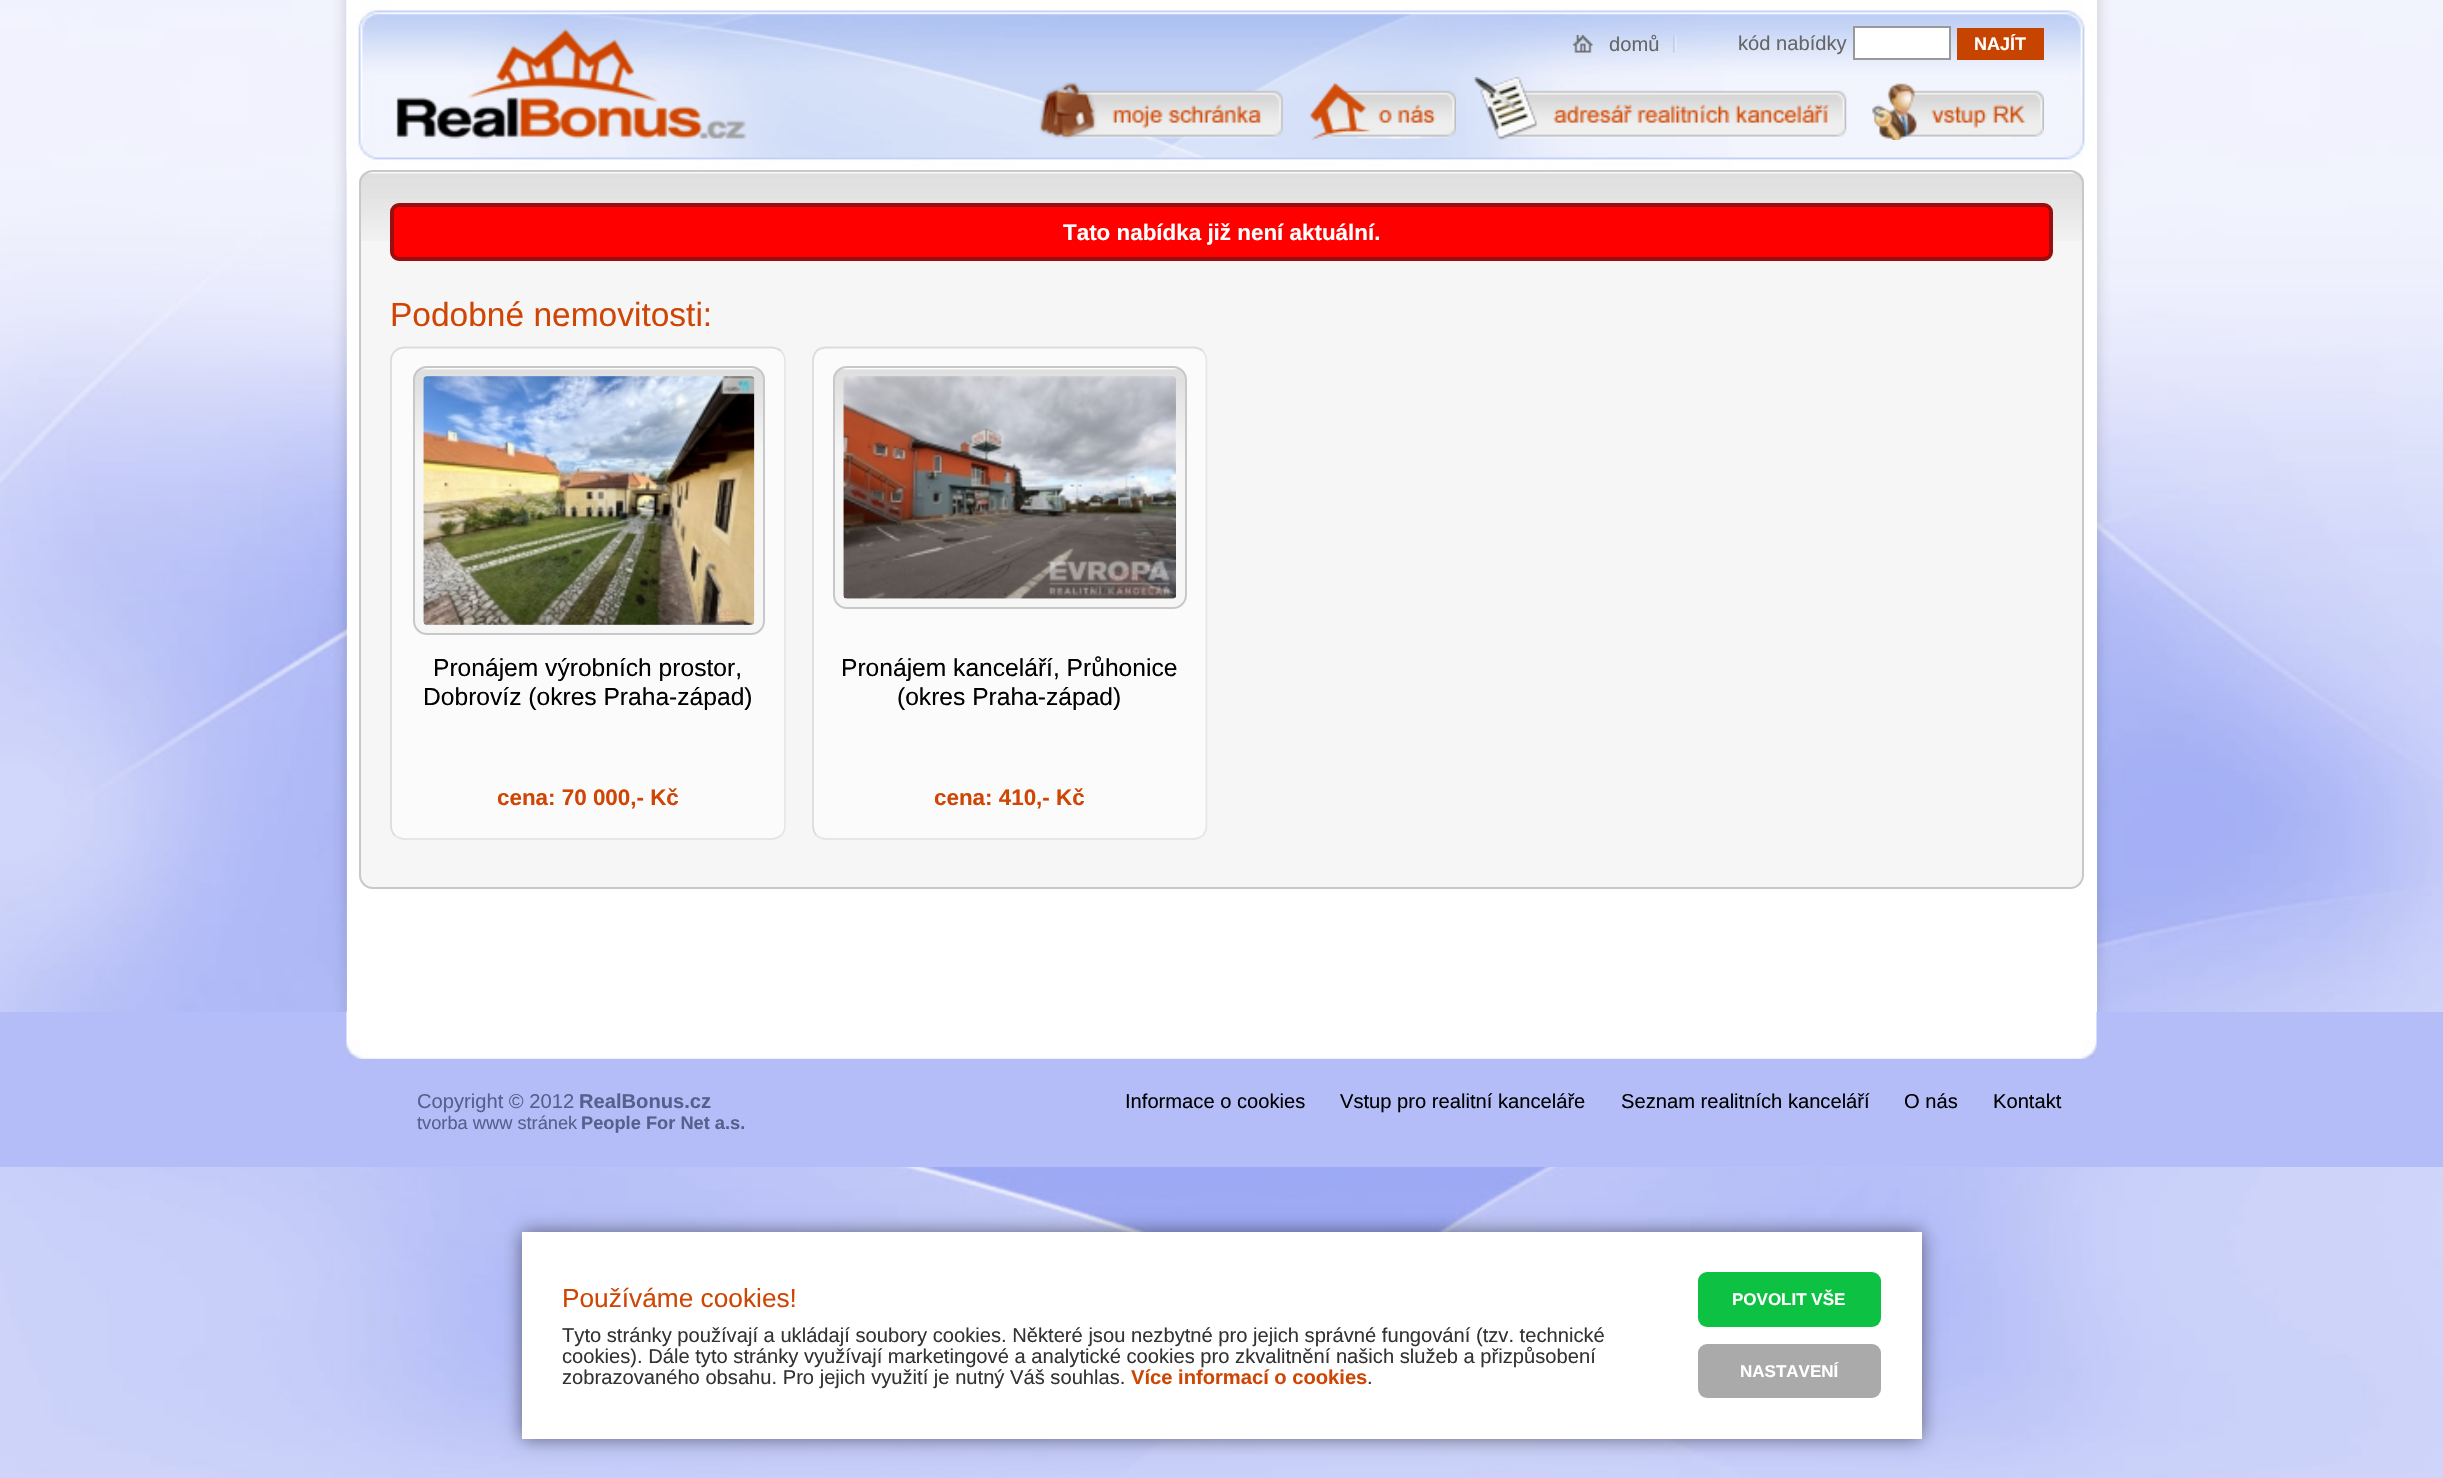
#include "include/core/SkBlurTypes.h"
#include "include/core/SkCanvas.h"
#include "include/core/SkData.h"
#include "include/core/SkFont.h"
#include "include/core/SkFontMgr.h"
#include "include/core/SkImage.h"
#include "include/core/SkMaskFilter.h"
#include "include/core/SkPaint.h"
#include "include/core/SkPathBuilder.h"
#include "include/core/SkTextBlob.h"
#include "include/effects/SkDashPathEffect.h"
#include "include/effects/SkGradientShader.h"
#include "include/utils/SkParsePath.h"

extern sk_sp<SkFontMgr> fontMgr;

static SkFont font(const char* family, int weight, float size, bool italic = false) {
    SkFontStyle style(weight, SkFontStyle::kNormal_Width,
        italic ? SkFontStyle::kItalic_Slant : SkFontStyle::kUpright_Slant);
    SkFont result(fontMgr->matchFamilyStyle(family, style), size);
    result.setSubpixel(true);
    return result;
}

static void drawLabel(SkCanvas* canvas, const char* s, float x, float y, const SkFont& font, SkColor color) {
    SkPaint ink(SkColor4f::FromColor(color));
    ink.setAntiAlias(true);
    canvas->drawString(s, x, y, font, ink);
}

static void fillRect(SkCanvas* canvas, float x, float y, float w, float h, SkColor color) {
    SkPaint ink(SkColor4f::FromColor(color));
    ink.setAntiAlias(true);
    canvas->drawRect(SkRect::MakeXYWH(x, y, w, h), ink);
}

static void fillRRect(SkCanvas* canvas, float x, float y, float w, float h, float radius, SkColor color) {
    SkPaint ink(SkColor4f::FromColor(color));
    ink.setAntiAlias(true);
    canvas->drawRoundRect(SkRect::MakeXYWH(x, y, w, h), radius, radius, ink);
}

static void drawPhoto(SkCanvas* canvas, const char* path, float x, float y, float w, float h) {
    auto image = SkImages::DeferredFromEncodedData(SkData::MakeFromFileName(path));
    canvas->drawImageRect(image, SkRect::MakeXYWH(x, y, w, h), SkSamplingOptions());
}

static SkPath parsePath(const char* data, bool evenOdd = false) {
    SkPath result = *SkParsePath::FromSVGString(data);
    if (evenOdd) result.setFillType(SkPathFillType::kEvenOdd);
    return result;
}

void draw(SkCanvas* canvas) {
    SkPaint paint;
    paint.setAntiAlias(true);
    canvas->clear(0xFFFFFFFF);
    drawPhoto(canvas, "assets/img1.png", 0, 0, 2443, 1478);
    fillRect(canvas, 347, 0, 1750, 1012, 0xFFFFFFFF);
    drawPhoto(canvas, "assets/img2.png", 346, 0, 1748, 170);
    drawPhoto(canvas, "assets/img3.png", 1673, 35, 4, 18);
    drawPhoto(canvas, "assets/img4.png", 1573, 35, 20, 18);
    SkFont font1 = font("Liberation Sans", 400, 20.15f);
    drawLabel(canvas, "domů", 1609, 51, font1, 0xFF666666);
    drawLabel(canvas, "kód nabídky", 1738, 50, font1, 0xFF666666);
    paint.setColor(0xFFFFFFFF);
    canvas->drawRect(SkRect::MakeXYWH(1854, 27, 96, 32), paint);
    paint.setStroke(true);
    paint.setStrokeWidth(2);
    paint.setColor(0xFF999999);
    canvas->drawRect(SkRect::MakeXYWH(1854, 27, 96, 32), paint);
    fillRect(canvas, 1957, 28, 87, 32, 0xFFC74400);
    SkFont font2 = font("Liberation Sans", 700, 18);
    drawLabel(canvas, "NAJÍT", 1974, 50, font2, 0xFFFFFFFF);
    drawPhoto(canvas, "assets/img5.png", 1039, 82, 244, 58);
    drawPhoto(canvas, "assets/img6.png", 1309, 82, 147, 58);
    drawPhoto(canvas, "assets/img7.png", 1473, 77, 374, 63);
    drawPhoto(canvas, "assets/img8.png", 1872, 83, 172, 57);
    fillRRect(canvas, 359, 170, 1725, 719, 14, 0xFFF6F6F6);
    drawPhoto(canvas, "assets/img9.png", 359, 172, 1725, 69);
    paint.setColor(0xFFC8C8C8);
    canvas->drawRoundRect(SkRect::MakeXYWH(360, 171, 1723, 717), 13, 13, paint);
    paint.setStroke(false);
    paint.setColor(0xFFFF0000);
    canvas->drawRoundRect(SkRect::MakeXYWH(392, 205, 1659, 54), 7, 7, paint);
    paint.setStroke(true);
    paint.setStrokeWidth(4);
    paint.setColor(0xFF990F0F);
    canvas->drawRoundRect(SkRect::MakeXYWH(392, 205, 1659, 54), 7, 7, paint);
    SkFont font3 = font("Liberation Sans", 700, 22.4f);
    drawLabel(canvas, "Tato nabídka již není aktuální.", 1063, 240, font3, 0xFFFFFFFF);
    SkFont font4 = font("Liberation Sans", 400, 33.5f);
    drawLabel(canvas, "Podobné nemovitosti:", 390, 326, font4, 0xFFCF4504);
    fillRRect(canvas, 390, 347, 396, 493, 14, 0xFFFBFBFB);
    paint.setStrokeWidth(1.8f);
    paint.setColor(0xFFE6E6E6);
    canvas->drawPath(parsePath("M781 351C783.5 353.5 785 357 785 360.5V826C785 829.5 783.5 833 781 835.5C778.5 837.5 775 839 772 839H404C401 839 397.5 837.5 395 835.5"), paint);
    paint.setColor(0xFFDCDCDC);
    canvas->drawPath(parsePath("M395 835.5C392.5 833 391 829.5 391 826V360.5C391 357 392.5 353.5 395 351C397.5 349 401 347.5 404 347.5H772C775 347.5 778.5 349 781 351"), paint);
    fillRRect(canvas, 413, 366, 352, 269, 14, 0xFFF6F6F6);
    drawPhoto(canvas, "assets/img10.png", 413, 367, 352, 258);
    paint.setStrokeWidth(2);
    paint.setColor(0xFFC8C8C8);
    canvas->drawRoundRect(SkRect::MakeXYWH(414, 367, 350, 267), 13, 13, paint);
    drawPhoto(canvas, "assets/img11.png", 423, 376, 332, 249);
    SkFont font5 = font("Liberation Sans", 400, 24.6f);
    drawLabel(canvas, "Pronájem výrobních prostor,", 433, 676, font5, 0xFF000000);
    drawLabel(canvas, "Dobrovíz (okres Praha-západ)", 423, 705, font5, 0xFF000000);
    drawLabel(canvas, "cena: 70 000,- Kč", 497, 805, font3, 0xFFCF4504);
    fillRRect(canvas, 812, 347, 396, 493, 14, 0xFFFBFBFB);
    paint.setStrokeWidth(1.8f);
    paint.setColor(0xFFE6E6E6);
    canvas->drawPath(parsePath("M1203 351C1205 353.5 1206.5 357 1206.5 360.5V826C1206.5 829.5 1205 833 1203 835.5C1200.5 837.5 1197 839 1193.5 839H826C822.5 839 819 837.5 816.5 835.5"), paint);
    paint.setColor(0xFFDCDCDC);
    canvas->drawPath(parsePath("M816.5 835.5C814.5 833 813 829.5 813 826V360.5C813 357 814.5 353.5 816.5 351C819 349 822.5 347.5 826 347.5H1193.5C1197 347.5 1200.5 349 1203 351"), paint);
    fillRRect(canvas, 833, 366, 354, 243, 14, 0xFFF6F6F6);
    drawPhoto(canvas, "assets/img12.png", 833, 367, 354, 232);
    paint.setStrokeWidth(2);
    paint.setColor(0xFFC8C8C8);
    canvas->drawRoundRect(SkRect::MakeXYWH(834, 367, 352, 241), 13, 13, paint);
    drawPhoto(canvas, "assets/img13.png", 843, 376, 333, 223);
    drawLabel(canvas, "Pronájem kanceláří, Průhonice", 841, 676, font5, 0xFF000000);
    drawLabel(canvas, "(okres Praha-západ)", 897, 705, font5, 0xFF000000);
    drawLabel(canvas, "cena: 410,- Kč", 934, 805, font3, 0xFFCF4504);
    fillRect(canvas, 0, 1012, 2443, 155, 0xFFB4BDF7);
    drawPhoto(canvas, "assets/img14.png", 346, 1011, 1751, 48);
    drawLabel(canvas, "Copyright © 2012", 417, 1108, font1, 0xFF575F8C);
    SkFont font6 = font("Liberation Sans", 700, 20.15f);
    drawLabel(canvas, "RealBonus.cz", 579, 1108, font6, 0xFF575F8C);
    drawLabel(canvas, "Informace o cookies", 1125, 1108, font1, 0xFF000000);
    drawLabel(canvas, "Vstup pro realitní kanceláře", 1340, 1108, font1, 0xFF000000);
    drawLabel(canvas, "Seznam realitních kanceláří", 1621, 1108, font1, 0xFF000000);
    drawLabel(canvas, "O nás", 1904, 1108, font1, 0xFF000000);
    drawLabel(canvas, "Kontakt", 1993, 1108, font1, 0xFF000000);
    SkFont font7 = font("Liberation Sans", 400, 18.25f);
    drawLabel(canvas, "tvorba www stránek", 417, 1129, font7, 0xFF575F8C);
    SkFont font8 = font("Liberation Sans", 700, 18.25f);
    drawLabel(canvas, "People For Net a.s.", 581, 1129, font8, 0xFF575F8C);
    paint.setStroke(false);
    paint.setColor(0x80000000);
    paint.setMaskFilter(SkMaskFilter::MakeBlur(kNormal_SkBlurStyle, 9));
    canvas->drawRect(SkRect::MakeXYWH(522, 1232, 1400, 207), paint);
    paint.setMaskFilter(nullptr);
    fillRect(canvas, 522, 1232, 1400, 207, 0xFFFFFFFF);
    SkFont font9 = font("Liberation Sans", 400, 26.25f);
    drawLabel(canvas, "Používáme cookies!", 562, 1307, font9, 0xFFCF4504);
    drawLabel(canvas, "Tyto stránky používají a ukládají soubory cookies. Některé jsou nezbytné pro jejich správné fungování (tzv. technické", 562, 1342, font1, 0xFF333333);
    drawLabel(canvas, "cookies). Dále tyto stránky využívají marketingové a analytické cookies pro zkvalitnění našich služeb a přizpůsobení", 562, 1363, font1, 0xFF333333);
    drawLabel(canvas, "zobrazovaného obsahu. Pro jejich využití je nutný Váš souhlas.", 562, 1384, font1, 0xFF333333);
    drawLabel(canvas, "Více informací o cookies", 1131, 1384, font6, 0xFFCF4504);
    drawLabel(canvas, ".", 1367, 1384, font1, 0xFF333333);
    fillRRect(canvas, 1698, 1272, 183, 55, 9, 0xFF0DC143);
    SkFont font10 = font("Liberation Sans", 700, 17);
    drawLabel(canvas, "POVOLIT VŠE", 1732, 1305, font10, 0xFFFFFFFF);
    fillRRect(canvas, 1698, 1344, 183, 54, 9, 0xFFAAAAAA);
    drawLabel(canvas, "NASTAVENÍ", 1740, 1377, font10, 0xFFFFFFFF);
}
